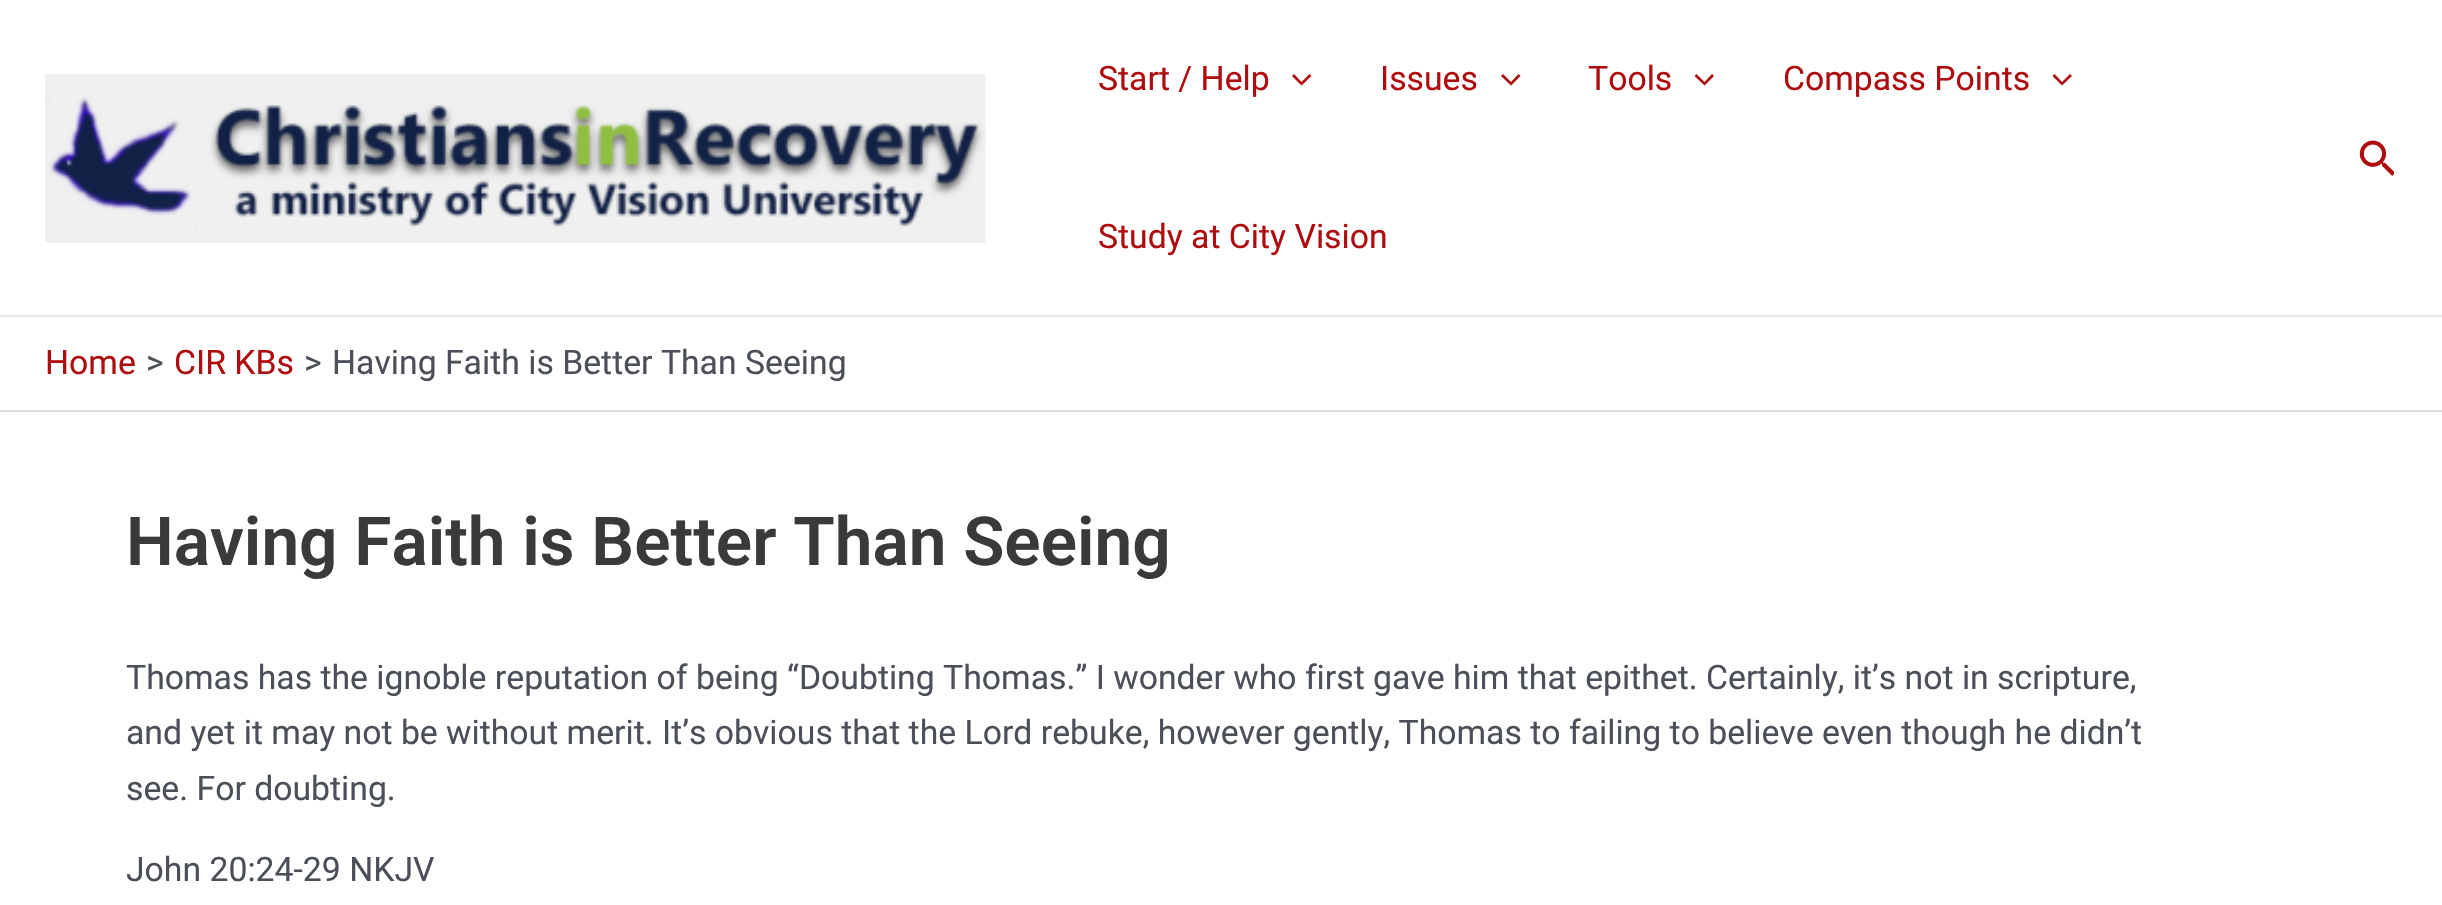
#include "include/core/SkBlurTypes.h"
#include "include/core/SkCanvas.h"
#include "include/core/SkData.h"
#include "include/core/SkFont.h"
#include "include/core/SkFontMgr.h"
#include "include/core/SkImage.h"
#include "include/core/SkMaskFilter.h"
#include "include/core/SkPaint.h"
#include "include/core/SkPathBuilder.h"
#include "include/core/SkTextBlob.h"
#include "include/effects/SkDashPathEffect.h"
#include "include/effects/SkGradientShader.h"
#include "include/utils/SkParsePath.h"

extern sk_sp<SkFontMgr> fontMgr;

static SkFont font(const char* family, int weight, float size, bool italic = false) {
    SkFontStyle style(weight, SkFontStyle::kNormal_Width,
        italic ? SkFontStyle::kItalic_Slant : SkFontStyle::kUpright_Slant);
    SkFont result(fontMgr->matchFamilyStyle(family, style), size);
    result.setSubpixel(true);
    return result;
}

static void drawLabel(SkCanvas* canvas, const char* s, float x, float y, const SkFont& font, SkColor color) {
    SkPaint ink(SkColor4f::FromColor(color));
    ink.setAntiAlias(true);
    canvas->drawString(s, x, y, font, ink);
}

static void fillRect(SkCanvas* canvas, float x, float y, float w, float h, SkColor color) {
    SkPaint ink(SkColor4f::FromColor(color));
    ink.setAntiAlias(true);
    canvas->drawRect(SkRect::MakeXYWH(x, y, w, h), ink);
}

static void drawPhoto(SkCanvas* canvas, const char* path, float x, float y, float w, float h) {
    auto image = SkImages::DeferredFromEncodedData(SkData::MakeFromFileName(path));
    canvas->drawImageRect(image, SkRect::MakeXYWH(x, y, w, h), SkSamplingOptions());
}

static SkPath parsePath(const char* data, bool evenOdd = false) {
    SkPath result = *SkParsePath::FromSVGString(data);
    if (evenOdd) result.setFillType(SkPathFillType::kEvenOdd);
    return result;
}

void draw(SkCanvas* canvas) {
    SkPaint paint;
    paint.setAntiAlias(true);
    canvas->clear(0xFFFFFFFF);
    fillRect(canvas, 0, 315, 2442, 2, 0xFFE5E5E5);
    drawPhoto(canvas, "assets/img1.png", 45, 74, 941, 169);
    SkFont font1 = font("Roboto", 400, 33.75f);
    drawLabel(canvas, "Start / Help", 1098, 90, font1, 0xFFAE0C0E);
    paint.setColor(0xFFAE0C0E);
    canvas->drawPath(parsePath("M1292 76L1301.5 85.5L1311.5 76L1309.5 74L1301.5 82L1294 74Z"), paint);
    drawLabel(canvas, "Issues", 1380, 90, font1, 0xFFAE0C0E);
    canvas->drawPath(parsePath("M1501 76L1511 85.5L1520.5 76L1518.5 74L1511 82L1503 74Z"), paint);
    drawLabel(canvas, "Tools", 1588, 90, font1, 0xFFAE0C0E);
    canvas->drawPath(parsePath("M1694.5 76L1704.5 85.5L1714 76L1712 74L1704.5 82L1696.5 74Z"), paint);
    drawLabel(canvas, "Compass Points", 1783, 90, font1, 0xFFAE0C0E);
    canvas->drawPath(parsePath("M2052.5 76L2062 85.5L2072 76L2070 74L2062 82L2054.5 74Z"), paint);
    drawLabel(canvas, "Study at City Vision", 1098, 248, font1, 0xFFAE0C0E);
    drawPhoto(canvas, "assets/img2.png", 2359, 140, 35, 36);
    fillRect(canvas, 0, 410, 2442, 2, 0xFFDDDDDD);
    drawLabel(canvas, "Home", 45, 374, font1, 0xFFAE0C0E);
    drawLabel(canvas, ">", 146, 374, font1, 0xFF4B4F58);
    drawLabel(canvas, "CIR KBs", 174, 374, font1, 0xFFAE0C0E);
    drawLabel(canvas, ">", 304, 374, font1, 0xFF4B4F58);
    drawLabel(canvas, "Having Faith is Better Than Seeing", 332, 374, font1, 0xFF4B4F58);
    SkFont font2 = font("Roboto", 600, 67.5f);
    drawLabel(canvas, "Having Faith is Better Than Seeing", 126, 565, font2, 0xFF3A3A3A);
    drawLabel(canvas, "Thomas has the ignoble reputation of being “Doubting Thomas.” I wonder who first gave him that epithet. Certainly, it’s not in scripture,", 126, 689, font1, 0xFF4B4F58);
    drawLabel(canvas, "and yet it may not be without merit. It’s obvious that the Lord rebuke, however gently, Thomas to failing to believe even though he didn’t", 126, 744, font1, 0xFF4B4F58);
    drawLabel(canvas, "see. For doubting.", 126, 800, font1, 0xFF4B4F58);
    drawLabel(canvas, "John 20:24-29 NKJV", 126, 881, font1, 0xFF4B4F58);
}
